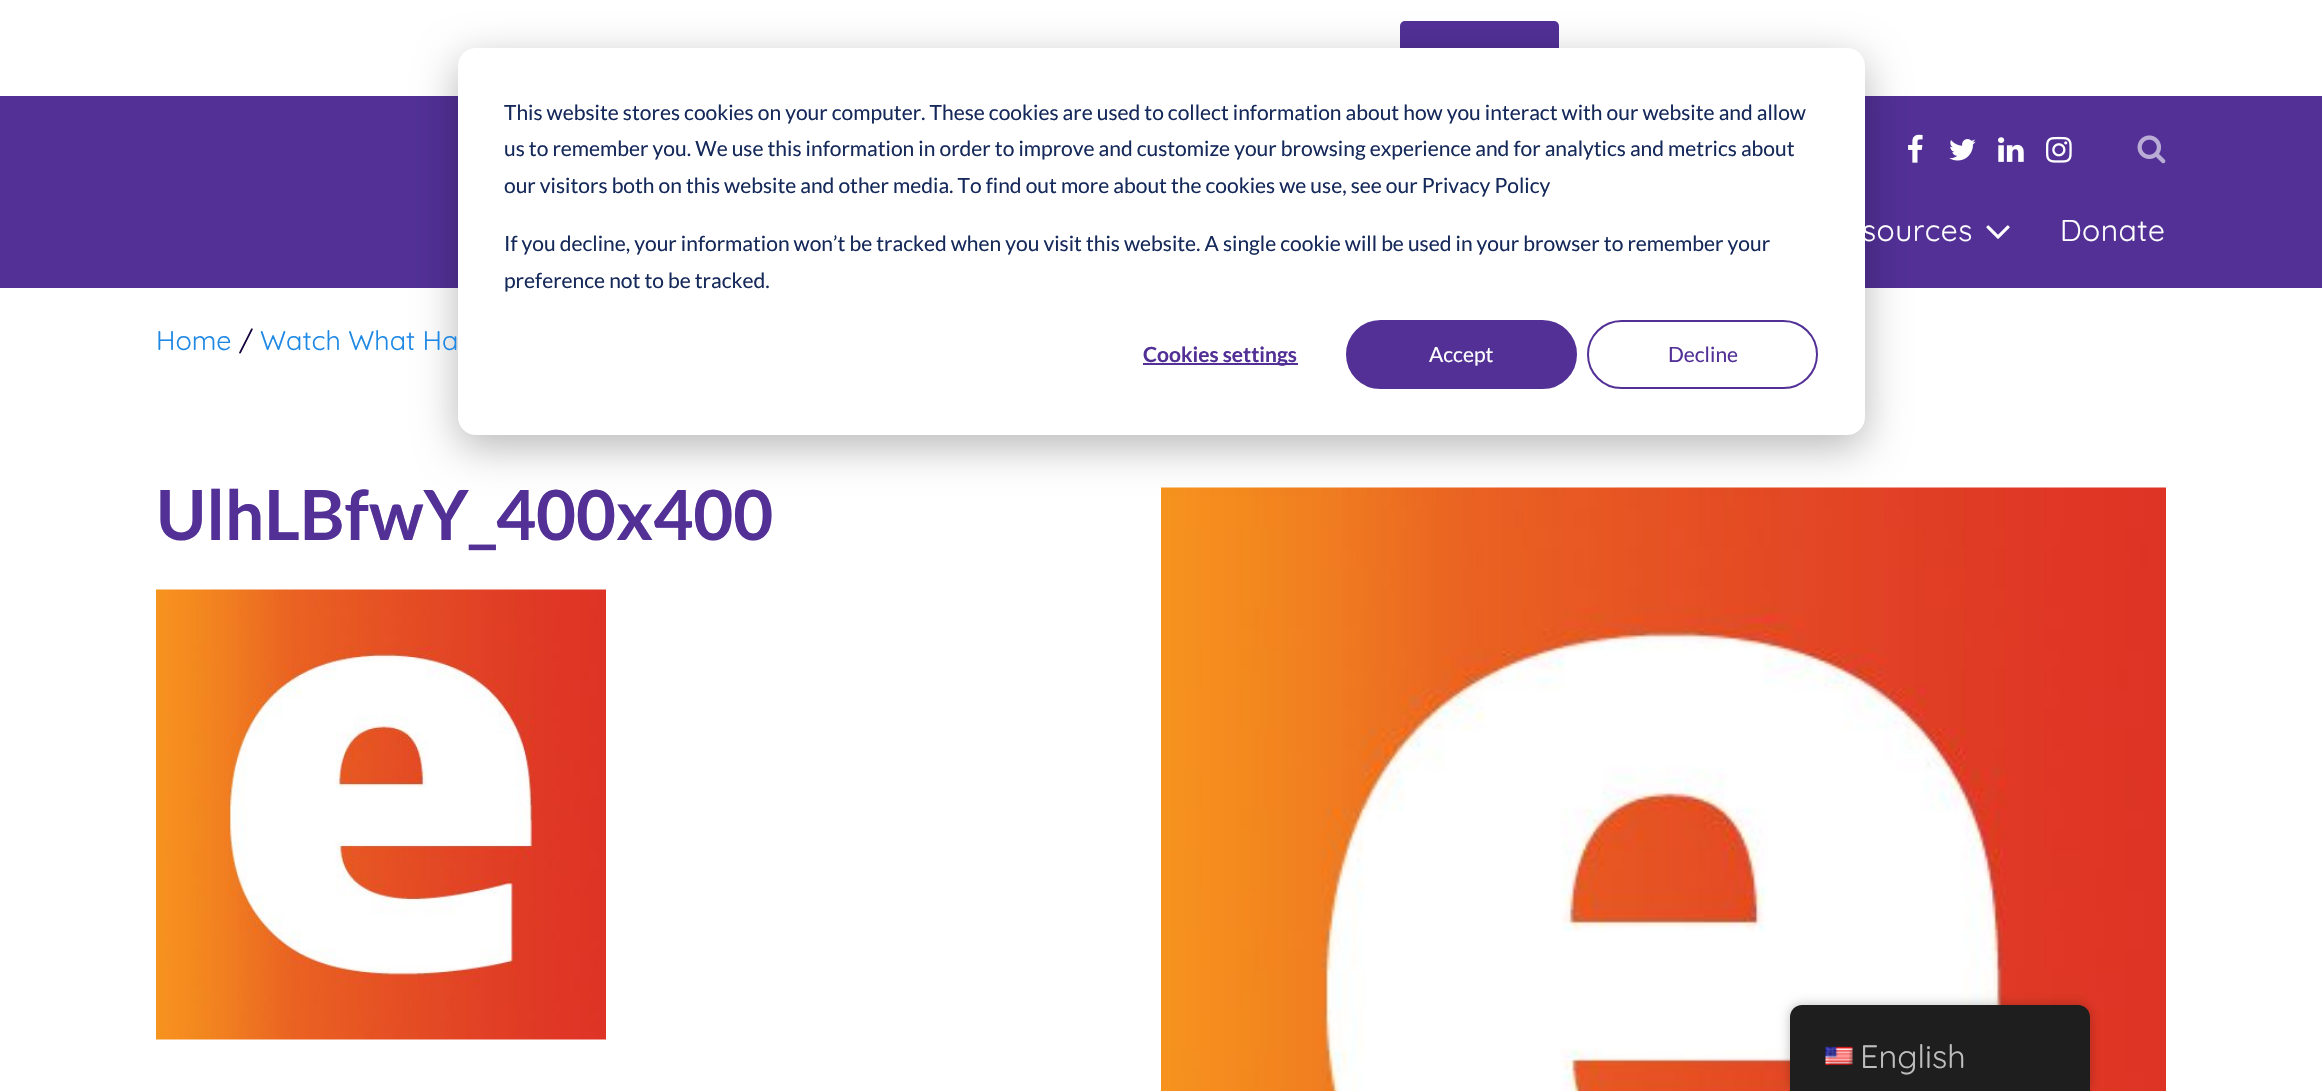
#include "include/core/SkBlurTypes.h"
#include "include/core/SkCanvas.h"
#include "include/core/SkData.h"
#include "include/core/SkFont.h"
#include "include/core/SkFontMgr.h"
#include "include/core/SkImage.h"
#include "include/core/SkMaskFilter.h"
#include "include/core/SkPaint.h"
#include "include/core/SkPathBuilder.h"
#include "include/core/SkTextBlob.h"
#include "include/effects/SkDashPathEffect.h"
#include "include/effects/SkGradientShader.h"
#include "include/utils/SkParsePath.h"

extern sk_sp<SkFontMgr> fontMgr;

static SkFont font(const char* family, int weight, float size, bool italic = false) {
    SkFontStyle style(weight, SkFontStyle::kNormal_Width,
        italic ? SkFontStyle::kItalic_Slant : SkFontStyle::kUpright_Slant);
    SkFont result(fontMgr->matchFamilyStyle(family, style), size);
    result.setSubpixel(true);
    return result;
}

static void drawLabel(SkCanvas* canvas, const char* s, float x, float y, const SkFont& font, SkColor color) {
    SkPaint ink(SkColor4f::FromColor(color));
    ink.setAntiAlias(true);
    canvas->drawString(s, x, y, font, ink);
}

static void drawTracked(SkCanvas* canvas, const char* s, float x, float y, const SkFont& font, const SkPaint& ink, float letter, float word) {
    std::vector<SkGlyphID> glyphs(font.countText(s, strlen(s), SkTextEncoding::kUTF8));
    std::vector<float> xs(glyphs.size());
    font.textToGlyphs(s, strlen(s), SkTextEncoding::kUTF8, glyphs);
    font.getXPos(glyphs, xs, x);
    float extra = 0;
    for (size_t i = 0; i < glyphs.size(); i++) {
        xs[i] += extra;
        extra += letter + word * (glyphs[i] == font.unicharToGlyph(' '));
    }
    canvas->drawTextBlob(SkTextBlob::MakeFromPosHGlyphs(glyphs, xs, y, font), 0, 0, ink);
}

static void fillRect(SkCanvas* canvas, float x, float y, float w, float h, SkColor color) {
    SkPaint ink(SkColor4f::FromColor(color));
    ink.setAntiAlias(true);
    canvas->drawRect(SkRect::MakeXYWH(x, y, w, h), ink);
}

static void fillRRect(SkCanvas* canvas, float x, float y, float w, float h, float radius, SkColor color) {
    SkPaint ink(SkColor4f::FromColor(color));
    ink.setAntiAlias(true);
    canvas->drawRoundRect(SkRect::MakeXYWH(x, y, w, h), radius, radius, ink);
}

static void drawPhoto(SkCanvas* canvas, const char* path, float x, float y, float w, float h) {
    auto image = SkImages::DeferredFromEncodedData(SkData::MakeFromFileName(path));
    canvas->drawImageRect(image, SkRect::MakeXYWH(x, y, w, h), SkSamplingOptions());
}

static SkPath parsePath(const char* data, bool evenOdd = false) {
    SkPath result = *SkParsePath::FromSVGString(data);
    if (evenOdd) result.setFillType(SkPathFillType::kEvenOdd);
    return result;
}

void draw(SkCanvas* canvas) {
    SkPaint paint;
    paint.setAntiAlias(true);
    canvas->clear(0xFFFFFFFF);
    fillRRect(canvas, 1400, 21, 159, 54, 5, 0xFF523096);
    fillRect(canvas, 0, 96, 2322, 192, 0xFF523096);
    drawPhoto(canvas, "assets/img1.png", 1908, 134, 15, 29);
    drawPhoto(canvas, "assets/img7.png", 1161, 487, 1005, 604);
    paint.setColor(0x47000000);
    paint.setMaskFilter(SkMaskFilter::MakeBlur(kNormal_SkBlurStyle, 21));
    canvas->drawRoundRect(SkRect::MakeXYWH(458, 60, 1407, 387), 18, 18, paint);
    paint.setMaskFilter(nullptr);
    fillRRect(canvas, 458, 48, 1407, 387, 18, 0xFFFFFFFF);
    SkFont font1 = font("Lato", 400, 21);
    drawLabel(canvas, "This website stores cookies on your computer. These cookies are used to collect information about how you interact with our website and allow", 504, 120, font1, 0xFF15295A);
    drawLabel(canvas, "us to remember you. We use this information in order to improve and customize your browsing experience and for analytics and metrics about", 504, 156, font1, 0xFF15295A);
    drawLabel(canvas, "our visitors both on this website and other media. To find out more about the cookies we use, see our Privacy Policy", 504, 193, font1, 0xFF15295A);
    drawLabel(canvas, "If you decline, your information won’t be tracked when you visit this website. A single cookie will be used in your browser to remember your", 504, 251, font1, 0xFF15295A);
    drawLabel(canvas, "preference not to be tracked.", 504, 288, font1, 0xFF15295A);
    fillRect(canvas, 1143, 363, 155, 2, 0xFF523096);
    SkFont font2 = font("Lato", 700, 21);
    drawLabel(canvas, "Cookies settings", 1143, 362, font2, 0xFF523096);
    paint.setColor(0xFF523096);
    canvas->drawRoundRect(SkRect::MakeXYWH(1347, 321, 229, 67), 33.5f, 33.5f, paint);
    paint.setStroke(true);
    paint.setStrokeWidth(2);
    canvas->drawRoundRect(SkRect::MakeXYWH(1347, 321, 229, 67), 33.5f, 33.5f, paint);
    drawLabel(canvas, "Accept", 1429, 362, font1, 0xFFFFFFFF);
    canvas->drawRoundRect(SkRect::MakeXYWH(1588, 321, 229, 67), 33.5f, 33.5f, paint);
    drawLabel(canvas, "Decline", 1668, 362, font1, 0xFF523096);
    drawPhoto(canvas, "assets/img2.png", 1949, 139, 27, 22);
    drawPhoto(canvas, "assets/img3.png", 1998, 137, 26, 25);
    drawPhoto(canvas, "assets/img4.png", 2046, 136, 26, 27);
    drawPhoto(canvas, "assets/img5.png", 2137, 135, 29, 29);
    SkFont font3 = font("Quicksand", 300, 30);
    paint.setStroke(false);
    paint.setColor(0xFFFFFFFF);
    drawTracked(canvas, "sources", 1862, 241, font3, paint, 0.5f, 0);
    drawPhoto(canvas, "assets/img6.png", 1986, 225, 24, 14);
    drawTracked(canvas, "Donate", 2060, 241, font3, paint, 0.5f, 0);
    SkFont font4 = font("Quicksand", 300, 27);
    drawLabel(canvas, "Home", 156, 350, font4, 0xFF1E88E5);
    drawLabel(canvas, "/", 239, 350, font4, 0xFF15033D);
    drawLabel(canvas, "Watch What Ha", 260, 350, font4, 0xFF1E88E5);
    SkFont font5 = font("Lato", 700, 69);
    drawLabel(canvas, "UlhLBfwY_400x400", 156, 540, font5, 0xFF523096);
    drawPhoto(canvas, "assets/img8.png", 156, 589, 450, 451);
    paint.setColor(0x40000000);
    paint.setMaskFilter(SkMaskFilter::MakeBlur(kNormal_SkBlurStyle, 6));
    canvas->drawRoundRect(SkRect::MakeXYWH(1790, 1005, 300, 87), 12, 12, paint);
    paint.setMaskFilter(nullptr);
    paint.setColor(0xFF1E1E1E);
    canvas->drawPath(parsePath("M1802 1005H2078C2084.5 1005 2090 1010.5 2090 1017V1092H1790V1017C1790 1010.5 1795.5 1005 1802 1005Z"), paint);
    drawPhoto(canvas, "assets/img9.png", 1825, 1046, 28, 19);
    SkFont font6 = font("Quicksand", 300, 32.5f);
    drawLabel(canvas, "English", 1860, 1068, font6, 0xFFBDBDBD);
}
